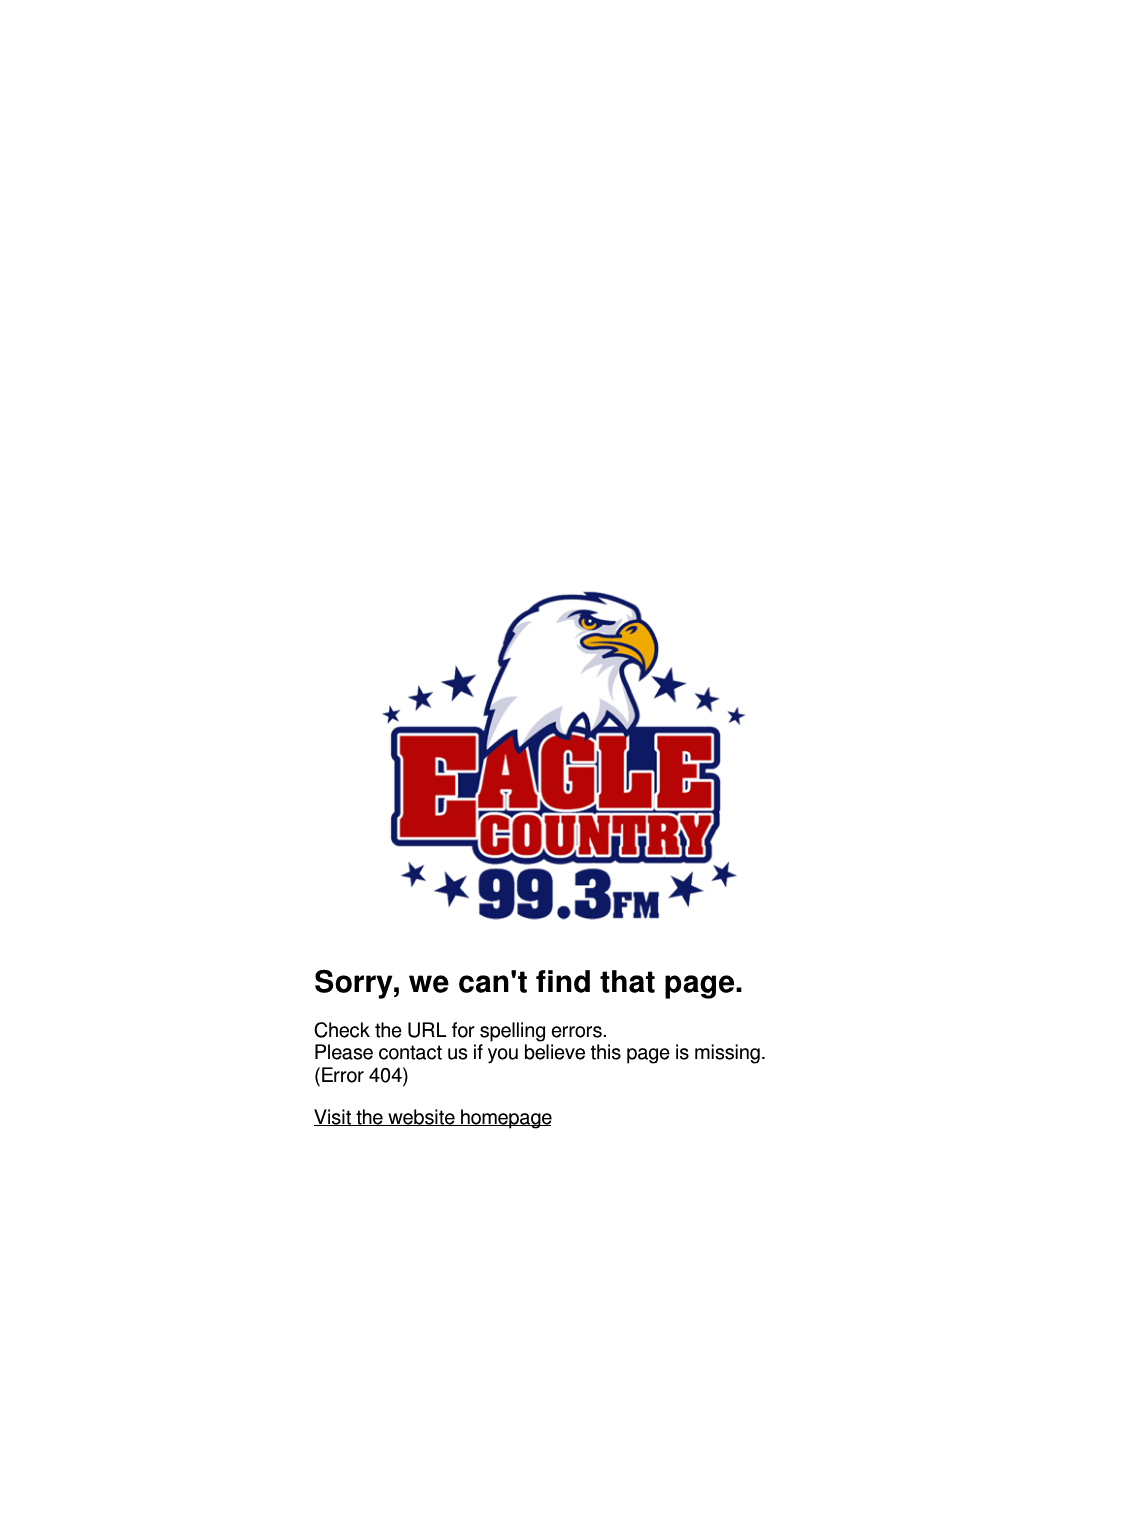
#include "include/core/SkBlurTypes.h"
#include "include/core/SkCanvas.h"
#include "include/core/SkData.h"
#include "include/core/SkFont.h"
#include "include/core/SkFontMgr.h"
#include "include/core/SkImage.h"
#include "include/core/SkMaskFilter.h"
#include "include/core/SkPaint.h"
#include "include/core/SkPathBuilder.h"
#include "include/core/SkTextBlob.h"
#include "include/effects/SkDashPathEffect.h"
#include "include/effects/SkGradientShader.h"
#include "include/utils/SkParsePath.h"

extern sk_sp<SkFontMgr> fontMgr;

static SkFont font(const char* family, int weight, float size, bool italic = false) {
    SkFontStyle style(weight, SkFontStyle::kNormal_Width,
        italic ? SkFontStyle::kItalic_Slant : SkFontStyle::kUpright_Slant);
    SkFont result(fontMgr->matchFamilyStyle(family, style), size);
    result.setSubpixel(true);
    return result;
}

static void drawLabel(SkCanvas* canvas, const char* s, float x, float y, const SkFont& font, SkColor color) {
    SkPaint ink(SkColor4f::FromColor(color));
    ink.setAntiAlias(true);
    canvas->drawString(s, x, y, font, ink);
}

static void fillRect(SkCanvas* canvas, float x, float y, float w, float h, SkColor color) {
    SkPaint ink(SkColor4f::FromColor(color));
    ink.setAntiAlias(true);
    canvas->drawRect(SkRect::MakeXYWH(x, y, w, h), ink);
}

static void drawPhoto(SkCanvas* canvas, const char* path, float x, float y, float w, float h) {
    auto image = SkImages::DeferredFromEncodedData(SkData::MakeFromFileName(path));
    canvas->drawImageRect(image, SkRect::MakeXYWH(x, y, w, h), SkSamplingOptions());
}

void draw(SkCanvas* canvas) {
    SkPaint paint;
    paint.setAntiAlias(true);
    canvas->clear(0xFFFFFFFF);
    drawPhoto(canvas, "assets/img1.png", 381, 591, 366, 330);
    SkFont font1 = font("FreeSans", 600, 30);
    drawLabel(canvas, "Sorry, we can't find that page.", 314, 992, font1, 0xFF000000);
    SkFont font2 = font("FreeSans", 400, 20);
    drawLabel(canvas, "Check the URL for spelling errors.", 314, 1037, font2, 0xFF000000);
    drawLabel(canvas, "Please contact us if you believe this page is missing.", 314, 1059, font2, 0xFF000000);
    drawLabel(canvas, "(Error 404)", 314, 1082, font2, 0xFF000000);
    fillRect(canvas, 314, 1125, 237, 1, 0xFF000000);
    drawLabel(canvas, "Visit the website homepage", 314, 1124, font2, 0xFF000000);
}
